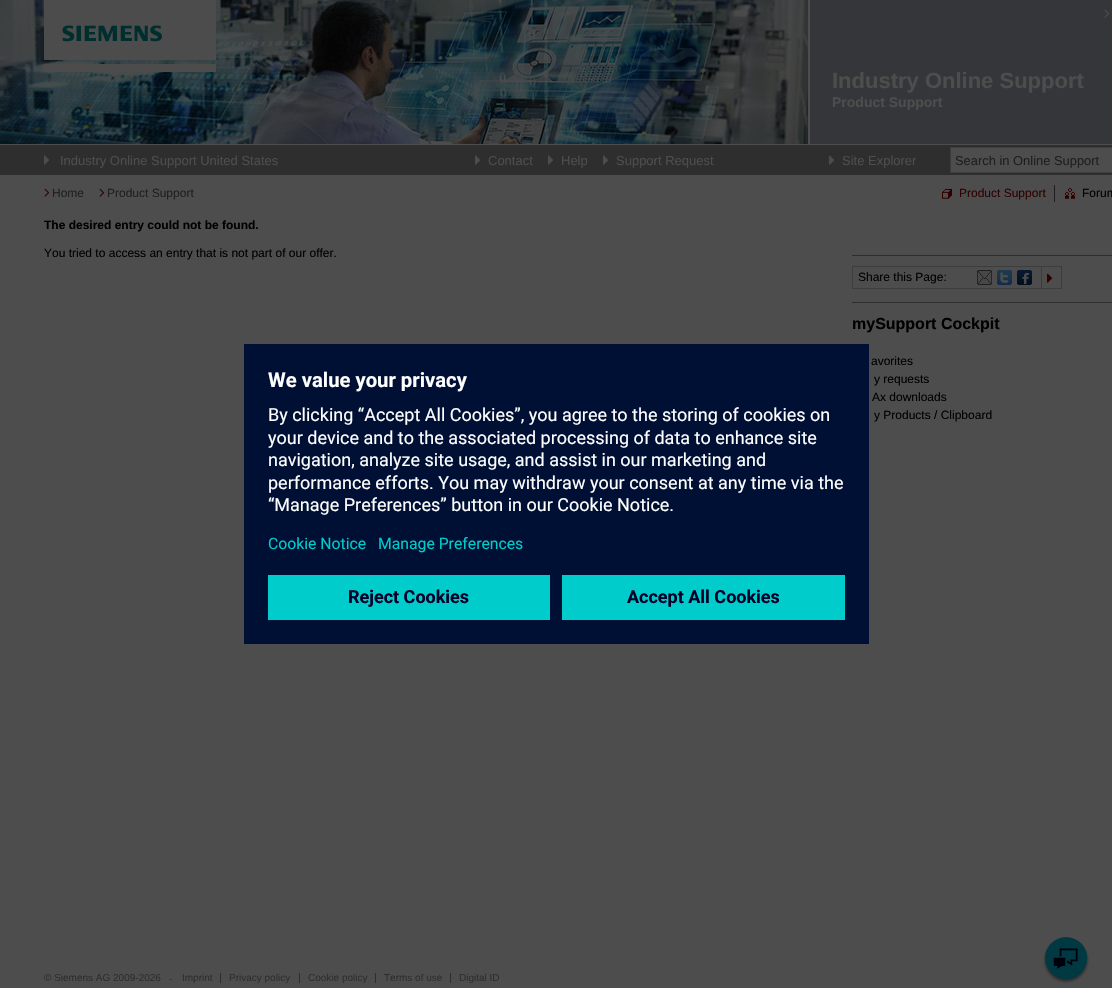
#include "include/core/SkBlurTypes.h"
#include "include/core/SkCanvas.h"
#include "include/core/SkData.h"
#include "include/core/SkFont.h"
#include "include/core/SkFontMgr.h"
#include "include/core/SkImage.h"
#include "include/core/SkMaskFilter.h"
#include "include/core/SkPaint.h"
#include "include/core/SkPathBuilder.h"
#include "include/core/SkTextBlob.h"
#include "include/effects/SkDashPathEffect.h"
#include "include/effects/SkGradientShader.h"
#include "include/utils/SkParsePath.h"

extern sk_sp<SkFontMgr> fontMgr;

static SkFont font(const char* family, int weight, float size, bool italic = false) {
    SkFontStyle style(weight, SkFontStyle::kNormal_Width,
        italic ? SkFontStyle::kItalic_Slant : SkFontStyle::kUpright_Slant);
    SkFont result(fontMgr->matchFamilyStyle(family, style), size);
    result.setSubpixel(true);
    return result;
}

static void drawLabel(SkCanvas* canvas, const char* s, float x, float y, const SkFont& font, SkColor color) {
    SkPaint ink(SkColor4f::FromColor(color));
    ink.setAntiAlias(true);
    canvas->drawString(s, x, y, font, ink);
}

static void fillRect(SkCanvas* canvas, float x, float y, float w, float h, SkColor color) {
    SkPaint ink(SkColor4f::FromColor(color));
    ink.setAntiAlias(true);
    canvas->drawRect(SkRect::MakeXYWH(x, y, w, h), ink);
}

static void drawPhoto(SkCanvas* canvas, const char* path, float x, float y, float w, float h) {
    auto image = SkImages::DeferredFromEncodedData(SkData::MakeFromFileName(path));
    canvas->drawImageRect(image, SkRect::MakeXYWH(x, y, w, h), SkSamplingOptions());
}

void draw(SkCanvas* canvas) {
    SkPaint paint;
    paint.setAntiAlias(true);
    canvas->clear(0xFF4D4D4D);
    fillRect(canvas, 810, 0, 302, 144, 0xFF353639);
    drawPhoto(canvas, "assets/img3.png", 0, 0, 808, 144);
    drawPhoto(canvas, "assets/img1.png", 44, 0, 172, 72);
    drawPhoto(canvas, "assets/img2.png", 1104, 9, 6, 9);
    SkFont font1 = font("Liberation Sans", 700, 22);
    drawLabel(canvas, "Industry Online Support", 832, 88, font1, 0xFF4D4D4D);
    SkFont font2 = font("Liberation Sans", 700, 14);
    drawLabel(canvas, "Product Support", 832, 107, font2, 0xFF4D4D4D);
    fillRect(canvas, 0, 145, 1112, 30, 0xFF2E2E2E);
    drawPhoto(canvas, "assets/img4.png", 44, 155, 5, 10);
    SkFont font3 = font("Liberation Sans", 400, 13);
    drawLabel(canvas, "Industry Online Support United States", 60, 165, font3, 0xFF4D4D4D);
    drawPhoto(canvas, "assets/img4.png", 475, 155, 5, 10);
    drawLabel(canvas, "Contact", 488, 165, font3, 0xFF4D4D4D);
    drawPhoto(canvas, "assets/img4.png", 548, 155, 5, 10);
    drawLabel(canvas, "Help", 561, 165, font3, 0xFF4D4D4D);
    drawPhoto(canvas, "assets/img4.png", 603, 155, 5, 10);
    drawLabel(canvas, "Support Request", 616, 165, font3, 0xFF4D4D4D);
    drawPhoto(canvas, "assets/img4.png", 829, 155, 5, 10);
    drawLabel(canvas, "Site Explorer", 842, 165, font3, 0xFF4D4D4D);
    fillRect(canvas, 951, 148, 161, 24, 0xFF4D4D4D);
    fillRect(canvas, 950, 147, 162, 1, 0xFF3D3D3D);
    fillRect(canvas, 950, 172, 162, 1, 0xFF3D3D3D);
    fillRect(canvas, 950, 147, 1, 26, 0xFF3D3D3D);
    SkFont font4 = font("Liberation Sans", 400, 12.9f);
    drawLabel(canvas, "Search in Online Support", 955, 165, font4, 0xFF1F1F1F);
    drawPhoto(canvas, "assets/img5.png", 44, 188, 6, 9);
    SkFont font5 = font("Liberation Sans", 400, 12);
    drawLabel(canvas, "Home", 52, 197, font5, 0xFF1F1F1F);
    drawPhoto(canvas, "assets/img5.png", 99, 188, 6, 9);
    drawLabel(canvas, "Product Support", 107, 197, font5, 0xFF1F1F1F);
    fillRect(canvas, 1054, 185, 1, 17, 0xFF1F1F1F);
    drawPhoto(canvas, "assets/img6.png", 942, 188, 10, 11);
    drawLabel(canvas, "Product Support", 959, 197, font5, 0xFF2E0000);
    drawPhoto(canvas, "assets/img7.png", 1065, 188, 10, 11);
    drawLabel(canvas, "Forum", 1082, 197, font5, 0xFF000000);
    SkFont font6 = font("Liberation Sans", 700, 12);
    drawLabel(canvas, "The desired entry could not be found.", 44, 229, font6, 0xFF000000);
    drawLabel(canvas, "You tried to access an entry that is not part of our offer.", 44, 257, font5, 0xFF000000);
    fillRect(canvas, 852, 255, 260, 1, 0xFF2E2E2E);
    paint.setStroke(true);
    paint.setStrokeWidth(1);
    paint.setColor(0xFF3D3D3D);
    canvas->drawRect(SkRect::MakeXYWH(852.5f, 266.5f, 209, 22), paint);
    drawLabel(canvas, "Share this Page:", 858, 281, font5, 0xFF000000);
    drawPhoto(canvas, "assets/img8.png", 977, 270, 15, 15);
    drawPhoto(canvas, "assets/img9.png", 997, 270, 15, 15);
    drawPhoto(canvas, "assets/img10.png", 1017, 270, 15, 15);
    fillRect(canvas, 1041, 267, 1, 21, 0xFF3D3D3D);
    drawPhoto(canvas, "assets/img11.png", 1047, 273, 6, 10);
    fillRect(canvas, 852, 302, 260, 1, 0xFF2E2E2E);
    SkFont font7 = font("Liberation Sans", 700, 16);
    drawLabel(canvas, "mySupport Cockpit", 852, 329, font7, 0xFF000000);
    drawLabel(canvas, "avorites", 871, 365, font5, 0xFF000000);
    drawLabel(canvas, "y requests", 874, 383, font5, 0xFF000000);
    drawLabel(canvas, "Ax downloads", 872, 401, font5, 0xFF000000);
    drawLabel(canvas, "y Products / Clipboard", 874, 419, font5, 0xFF000000);
    SkFont font8 = font("Liberation Sans", 400, 10);
    drawLabel(canvas, "© Siemens AG 2009-2026", 44, 981, font8, 0xFF2E2E2E);
    drawLabel(canvas, "-", 169, 982, font8, 0xFF2E2E2E);
    drawLabel(canvas, "Imprint", 182, 981, font8, 0xFF2E2E2E);
    fillRect(canvas, 220, 973, 1, 10, 0xFF2E2E2E);
    drawLabel(canvas, "Privacy policy", 229, 981, font8, 0xFF2E2E2E);
    fillRect(canvas, 299, 973, 1, 10, 0xFF2E2E2E);
    drawLabel(canvas, "Cookie policy", 308, 981, font8, 0xFF2E2E2E);
    fillRect(canvas, 375, 973, 1, 10, 0xFF2E2E2E);
    drawLabel(canvas, "Terms of use", 384, 981, font8, 0xFF2E2E2E);
    fillRect(canvas, 450, 973, 1, 10, 0xFF2E2E2E);
    drawLabel(canvas, "Digital ID", 459, 981, font8, 0xFF2E2E2E);
    drawPhoto(canvas, "assets/img12.png", 1043, 937, 47, 47);
    fillRect(canvas, 244, 344, 625, 300, 0xFF001034);
    SkFont font9 = font("Roboto", 700, 20.25f);
    drawLabel(canvas, "We value your privacy", 268, 387, font9, 0xFFFFFFFF);
    SkFont font10 = font("Roboto", 400, 18);
    drawLabel(canvas, "By clicking “Accept All Cookies”, you agree to the storing of cookies on", 268, 421, font10, 0xFFFFFFFF);
    drawLabel(canvas, "your device and to the associated processing of data to enhance site", 268, 444, font10, 0xFFFFFFFF);
    drawLabel(canvas, "navigation, analyze site usage, and assist in our marketing and", 268, 466, font10, 0xFFFFFFFF);
    drawLabel(canvas, "performance efforts. You may withdraw your consent at any time via the", 268, 489, font10, 0xFFFFFFFF);
    drawLabel(canvas, "“Manage Preferences” button in our Cookie Notice.", 268, 511, font10, 0xFFFFFFFF);
    SkFont font11 = font("Roboto", 400, 15.75f);
    drawLabel(canvas, "Cookie Notice", 268, 549, font11, 0xFF00CCCC);
    drawLabel(canvas, "Manage Preferences", 378, 549, font11, 0xFF00CCCC);
    fillRect(canvas, 268, 575, 282, 45, 0xFF00CCCC);
    SkFont font12 = font("Roboto", 700, 18);
    drawLabel(canvas, "Reject Cookies", 348, 603, font12, 0xFF000028);
    fillRect(canvas, 562, 575, 283, 45, 0xFF00CCCC);
    drawLabel(canvas, "Accept All Cookies", 627, 603, font12, 0xFF000028);
}
